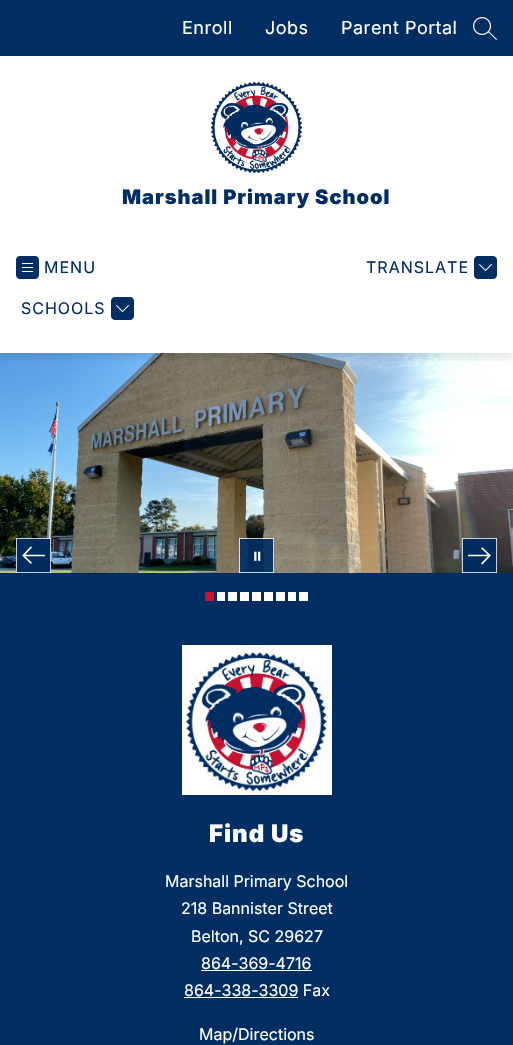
#include "include/core/SkBlurTypes.h"
#include "include/core/SkCanvas.h"
#include "include/core/SkData.h"
#include "include/core/SkFont.h"
#include "include/core/SkFontMgr.h"
#include "include/core/SkImage.h"
#include "include/core/SkMaskFilter.h"
#include "include/core/SkPaint.h"
#include "include/core/SkPathBuilder.h"
#include "include/core/SkTextBlob.h"
#include "include/effects/SkDashPathEffect.h"
#include "include/effects/SkGradientShader.h"
#include "include/utils/SkParsePath.h"

extern sk_sp<SkFontMgr> fontMgr;

static SkFont font(const char* family, int weight, float size, bool italic = false) {
    SkFontStyle style(weight, SkFontStyle::kNormal_Width,
        italic ? SkFontStyle::kItalic_Slant : SkFontStyle::kUpright_Slant);
    SkFont result(fontMgr->matchFamilyStyle(family, style), size);
    result.setSubpixel(true);
    return result;
}

static void drawLabel(SkCanvas* canvas, const char* s, float x, float y, const SkFont& font, SkColor color) {
    SkPaint ink(SkColor4f::FromColor(color));
    ink.setAntiAlias(true);
    canvas->drawString(s, x, y, font, ink);
}

static void drawTracked(SkCanvas* canvas, const char* s, float x, float y, const SkFont& font, const SkPaint& ink, float letter, float word) {
    std::vector<SkGlyphID> glyphs(font.countText(s, strlen(s), SkTextEncoding::kUTF8));
    std::vector<float> xs(glyphs.size());
    font.textToGlyphs(s, strlen(s), SkTextEncoding::kUTF8, glyphs);
    font.getXPos(glyphs, xs, x);
    float extra = 0;
    for (size_t i = 0; i < glyphs.size(); i++) {
        xs[i] += extra;
        extra += letter + word * (glyphs[i] == font.unicharToGlyph(' '));
    }
    canvas->drawTextBlob(SkTextBlob::MakeFromPosHGlyphs(glyphs, xs, y, font), 0, 0, ink);
}

static void fillRect(SkCanvas* canvas, float x, float y, float w, float h, SkColor color) {
    SkPaint ink(SkColor4f::FromColor(color));
    ink.setAntiAlias(true);
    canvas->drawRect(SkRect::MakeXYWH(x, y, w, h), ink);
}

static void drawPhoto(SkCanvas* canvas, const char* path, float x, float y, float w, float h) {
    auto image = SkImages::DeferredFromEncodedData(SkData::MakeFromFileName(path));
    canvas->drawImageRect(image, SkRect::MakeXYWH(x, y, w, h), SkSamplingOptions());
}

void draw(SkCanvas* canvas) {
    SkPaint paint;
    paint.setAntiAlias(true);
    canvas->clear(0xFFFFFFFF);
    drawPhoto(canvas, "assets/img5.png", 0, 353, 513, 220);
    canvas->save();
    canvas->clipRect(SkRect::MakeXYWH(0, 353, 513, 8));
    paint.setColor(0x1A000000);
    paint.setMaskFilter(SkMaskFilter::MakeBlur(kNormal_SkBlurStyle, 5));
    canvas->drawRect(SkRect::MakeXYWH(0, 4, 513, 353), paint);
    paint.setMaskFilter(nullptr);
    canvas->restore();
    fillRect(canvas, 0, 0, 513, 56, 0xFF002D62);
    SkFont font1 = font("Inter", 400, 18);
    paint.setColor(0xFFFFFFFF);
    drawTracked(canvas, "Enroll", 182, 34, font1, paint, 0.5f, 0);
    drawTracked(canvas, "Jobs", 265, 34, font1, paint, 0.5f, 0);
    drawTracked(canvas, "Parent Portal", 341, 34, font1, paint, 0.5f, 0);
    drawPhoto(canvas, "assets/img1.png", 473, 17, 24, 23);
    drawPhoto(canvas, "assets/img2.png", 210, 81, 93, 93);
    SkFont font2 = font("Inter", 900, 20);
    paint.setColor(0xFF002D62);
    drawTracked(canvas, "Marshall Primary School", 122, 204, font2, paint, 1, 0);
    drawPhoto(canvas, "assets/img3.png", 16, 256, 23, 23);
    SkFont font3 = font("Inter", 400, 16);
    drawTracked(canvas, "MENU", 44, 273, font3, paint, 1, 0);
    drawTracked(canvas, "SCHOOLS", 21, 314, font3, paint, 1, 0);
    drawPhoto(canvas, "assets/img4.png", 111, 297, 23, 23);
    drawTracked(canvas, "TRANSLATE", 366, 273, font3, paint, 1, 0);
    drawPhoto(canvas, "assets/img4.png", 474, 256, 23, 23);
    fillRect(canvas, 16, 538, 35, 35, 0xFF002D62);
    drawPhoto(canvas, "assets/img6.png", 16, 538, 35, 35);
    drawPhoto(canvas, "assets/img7.png", 239, 538, 35, 35);
    fillRect(canvas, 462, 538, 35, 35, 0xFF002D62);
    drawPhoto(canvas, "assets/img8.png", 462, 538, 35, 35);
    fillRect(canvas, 0, 573, 513, 472, 0xFF002D62);
    fillRect(canvas, 205, 592, 9, 9, 0xFFC8122F);
    fillRect(canvas, 217, 592, 8, 9, 0xFFFFFFFF);
    fillRect(canvas, 228, 592, 9, 9, 0xFFFFFFFF);
    fillRect(canvas, 240, 592, 9, 9, 0xFFFFFFFF);
    fillRect(canvas, 252, 592, 9, 9, 0xFFFFFFFF);
    fillRect(canvas, 264, 592, 9, 9, 0xFFFFFFFF);
    fillRect(canvas, 276, 592, 9, 9, 0xFFFFFFFF);
    fillRect(canvas, 288, 592, 8, 9, 0xFFFFFFFF);
    fillRect(canvas, 299, 592, 9, 9, 0xFFFFFFFF);
    drawPhoto(canvas, "assets/img9.png", 182, 645, 150, 150);
    SkFont font4 = font("Inter", 900, 24);
    paint.setColor(0xFFFFFFFF);
    drawTracked(canvas, "Find Us", 209, 842, font4, paint, 1, 0);
    drawLabel(canvas, "Marshall Primary School", 165, 887, font3, 0xFFFFFFFF);
    drawLabel(canvas, "218 Bannister Street", 181, 914, font3, 0xFFFFFFFF);
    drawLabel(canvas, "Belton, SC 29627", 191, 942, font3, 0xFFFFFFFF);
    drawLabel(canvas, "864-369-4716", 201, 969, font3, 0xFFFFFFFF);
    fillRect(canvas, 201, 970, 111, 1, 0xFFFFFFFF);
    drawLabel(canvas, "864-338-3309 Fax", 184, 996, font3, 0xFFFFFFFF);
    fillRect(canvas, 184, 997, 114, 1, 0xFFFFFFFF);
    drawLabel(canvas, "Map/Directions", 199, 1040, font3, 0xFFFFFFFF);
}
